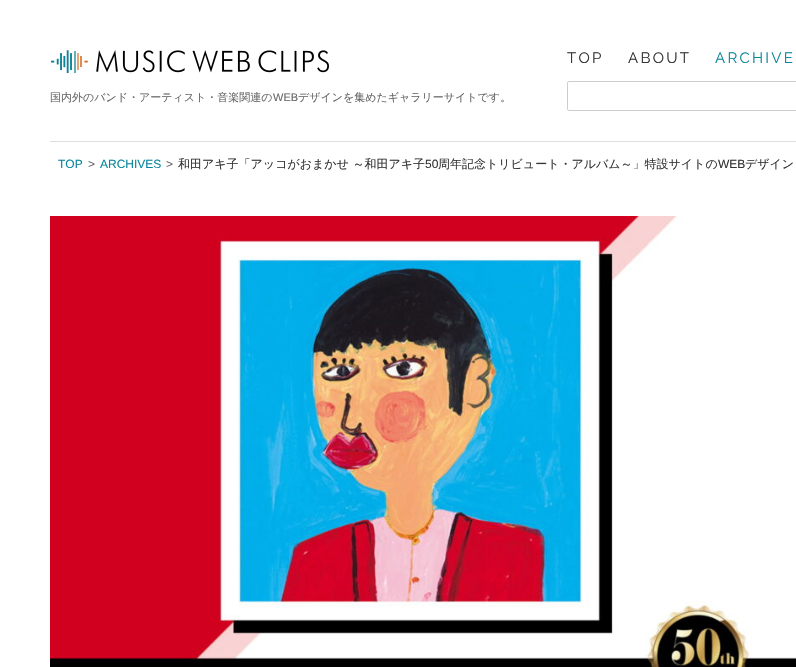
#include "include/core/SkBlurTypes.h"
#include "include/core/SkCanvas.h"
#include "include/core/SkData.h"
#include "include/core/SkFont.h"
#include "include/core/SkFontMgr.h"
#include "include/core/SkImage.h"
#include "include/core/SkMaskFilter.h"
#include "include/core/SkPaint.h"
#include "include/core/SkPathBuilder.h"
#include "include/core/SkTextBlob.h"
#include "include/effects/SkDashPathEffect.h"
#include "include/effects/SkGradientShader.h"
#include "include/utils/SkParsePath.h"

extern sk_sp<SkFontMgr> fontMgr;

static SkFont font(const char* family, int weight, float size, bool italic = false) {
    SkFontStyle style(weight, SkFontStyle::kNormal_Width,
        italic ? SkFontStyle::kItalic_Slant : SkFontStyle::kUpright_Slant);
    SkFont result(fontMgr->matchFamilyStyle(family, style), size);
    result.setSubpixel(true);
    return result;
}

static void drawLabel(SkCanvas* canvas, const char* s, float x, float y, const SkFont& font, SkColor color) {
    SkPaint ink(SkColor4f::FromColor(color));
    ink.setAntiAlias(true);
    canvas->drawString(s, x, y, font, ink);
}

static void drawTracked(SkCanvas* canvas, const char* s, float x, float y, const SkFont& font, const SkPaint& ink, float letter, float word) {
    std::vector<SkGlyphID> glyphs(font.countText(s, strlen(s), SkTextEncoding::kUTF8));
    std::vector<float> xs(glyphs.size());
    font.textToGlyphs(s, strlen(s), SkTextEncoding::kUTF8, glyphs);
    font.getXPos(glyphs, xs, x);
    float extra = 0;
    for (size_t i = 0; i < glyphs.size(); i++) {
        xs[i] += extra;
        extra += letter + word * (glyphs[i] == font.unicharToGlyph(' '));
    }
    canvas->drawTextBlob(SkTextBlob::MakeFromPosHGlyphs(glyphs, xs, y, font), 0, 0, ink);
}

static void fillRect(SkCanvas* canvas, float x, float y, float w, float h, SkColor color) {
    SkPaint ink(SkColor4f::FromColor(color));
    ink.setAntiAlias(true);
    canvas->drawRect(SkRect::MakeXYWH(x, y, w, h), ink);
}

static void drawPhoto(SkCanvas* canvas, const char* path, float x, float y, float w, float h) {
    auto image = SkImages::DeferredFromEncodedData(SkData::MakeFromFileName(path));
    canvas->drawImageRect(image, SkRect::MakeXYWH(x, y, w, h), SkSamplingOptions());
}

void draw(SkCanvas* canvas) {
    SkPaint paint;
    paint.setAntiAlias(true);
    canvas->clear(0xFFFFFFFF);
    fillRect(canvas, 50, 141, 746, 1, 0xFFDDDDDD);
    SkFont font1 = font("Raleway", 400, 15);
    paint.setColor(0xFF333333);
    drawTracked(canvas, "TOP", 567, 63, font1, paint, 2.25f, 0);
    drawTracked(canvas, "ABOUT", 628, 63, font1, paint, 2.25f, 0);
    paint.setColor(0xFF07889B);
    drawTracked(canvas, "ARCHIVE", 715, 63, font1, paint, 2.25f, 0);
    paint.setStroke(true);
    paint.setStrokeWidth(1);
    paint.setColor(0xFFCCCCCC);
    canvas->drawRoundRect(SkRect::MakeXYWH(567.5f, 81.5f, 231, 29), 1.5f, 1.5f, paint);
    drawPhoto(canvas, "assets/img1.png", 51, 50, 278, 23);
    SkFont font2 = font("WenQuanYi Zen Hei", 500, 11);
    drawLabel(canvas, "国内外のバンド・アーティスト・音楽関連の", 50, 101, font2, 0xFF666666);
    SkFont font3 = font("Liberation Sans", 400, 11);
    drawLabel(canvas, "WEB", 273, 101, font3, 0xFF666666);
    drawLabel(canvas, "デザインを集めたギャラリーサイトです。", 298, 101, font2, 0xFF666666);
    SkFont font4 = font("Liberation Sans", 400, 12);
    drawLabel(canvas, "TOP", 58, 168, font4, 0xFF07889B);
    drawLabel(canvas, ">", 88, 168, font4, 0xFF666666);
    drawLabel(canvas, "ARCHIVES", 100, 168, font4, 0xFF07889B);
    drawLabel(canvas, ">", 166, 168, font4, 0xFF666666);
    SkFont font5 = font("WenQuanYi Zen Hei", 500, 12);
    drawLabel(canvas, "和田アキ子「アッコがおまかせ ～和田アキ子", 178, 168, font5, 0xFF333333);
    drawLabel(canvas, "50", 425, 168, font4, 0xFF333333);
    drawLabel(canvas, "周年記念トリビュート・アルバム～」特設サイトの", 438, 168, font5, 0xFF333333);
    drawLabel(canvas, "WEB", 718, 168, font4, 0xFF333333);
    drawLabel(canvas, "デザイン", 745, 168, font5, 0xFF333333);
    drawPhoto(canvas, "assets/img2.png", 50, 216, 746, 451);
}
